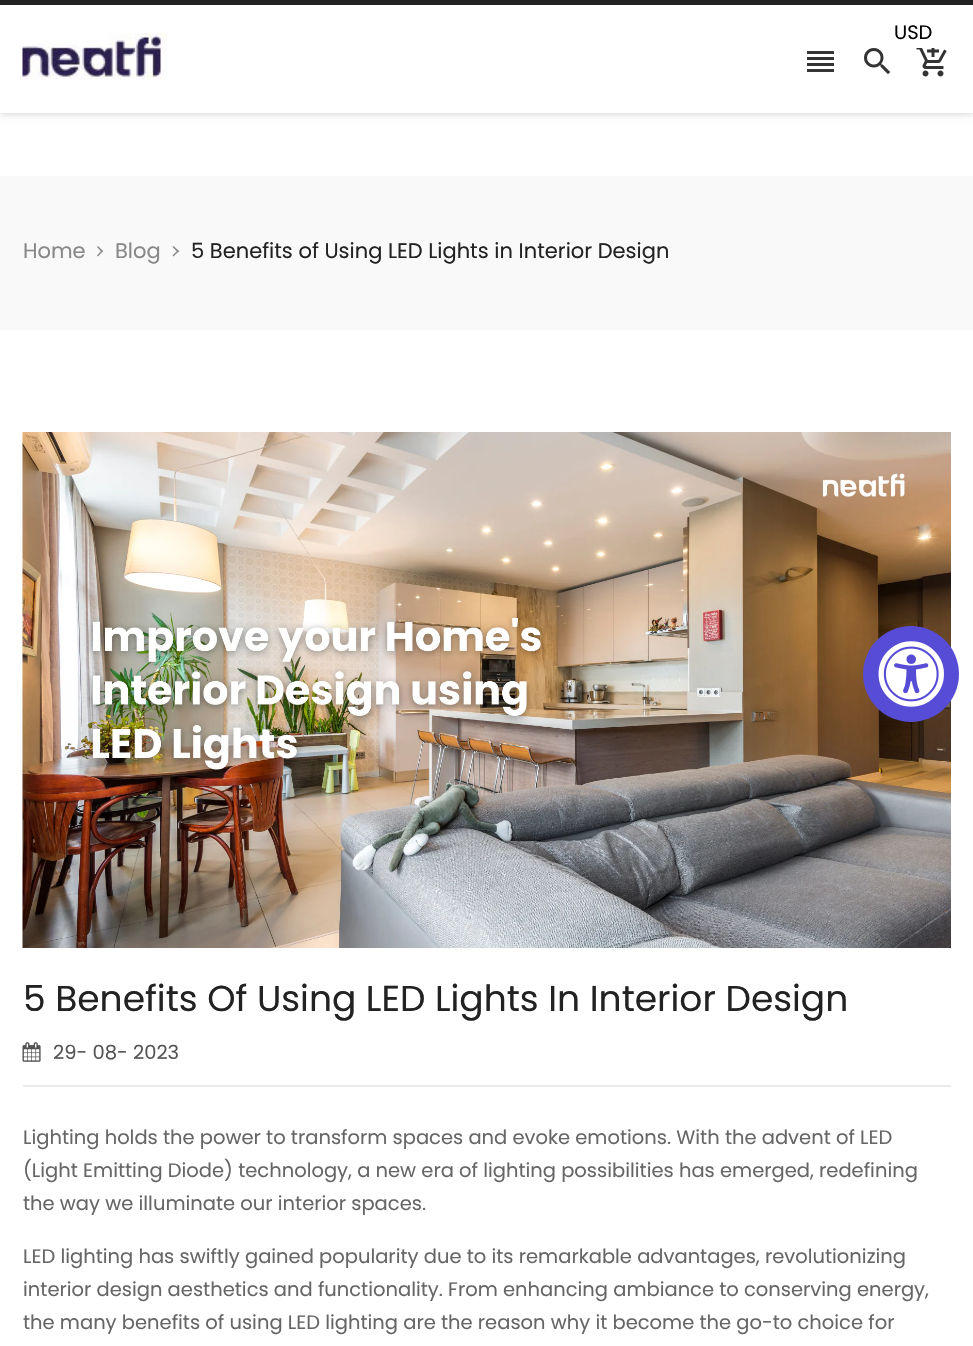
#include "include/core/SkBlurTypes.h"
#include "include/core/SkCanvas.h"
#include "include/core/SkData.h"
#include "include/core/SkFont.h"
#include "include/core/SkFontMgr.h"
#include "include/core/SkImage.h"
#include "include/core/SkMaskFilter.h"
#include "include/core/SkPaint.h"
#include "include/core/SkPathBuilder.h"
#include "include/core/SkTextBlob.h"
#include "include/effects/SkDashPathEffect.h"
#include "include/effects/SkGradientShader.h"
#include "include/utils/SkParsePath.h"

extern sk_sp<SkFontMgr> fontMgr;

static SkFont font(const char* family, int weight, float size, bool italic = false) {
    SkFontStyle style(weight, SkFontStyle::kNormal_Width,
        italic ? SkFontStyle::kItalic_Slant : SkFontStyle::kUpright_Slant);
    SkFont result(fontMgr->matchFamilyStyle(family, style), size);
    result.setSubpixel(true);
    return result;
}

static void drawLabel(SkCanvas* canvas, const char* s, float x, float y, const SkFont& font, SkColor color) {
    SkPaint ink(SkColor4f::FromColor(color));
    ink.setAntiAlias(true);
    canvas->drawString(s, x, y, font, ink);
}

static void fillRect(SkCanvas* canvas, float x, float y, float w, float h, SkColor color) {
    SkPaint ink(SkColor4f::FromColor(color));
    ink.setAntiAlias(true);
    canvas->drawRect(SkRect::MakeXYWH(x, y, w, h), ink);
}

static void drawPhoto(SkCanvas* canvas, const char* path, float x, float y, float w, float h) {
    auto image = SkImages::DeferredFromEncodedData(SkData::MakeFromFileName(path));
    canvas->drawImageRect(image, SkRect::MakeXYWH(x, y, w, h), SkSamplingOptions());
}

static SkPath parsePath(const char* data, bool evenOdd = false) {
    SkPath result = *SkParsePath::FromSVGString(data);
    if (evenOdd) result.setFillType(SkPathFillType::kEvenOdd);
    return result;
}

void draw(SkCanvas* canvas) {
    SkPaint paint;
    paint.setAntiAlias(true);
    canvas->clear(0xFFFFFFFF);
    paint.setColor(0x33000000);
    paint.setMaskFilter(SkMaskFilter::MakeBlur(kNormal_SkBlurStyle, 4));
    canvas->drawRect(SkRect::MakeXYWH(0, 0, 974, 113), paint);
    paint.setMaskFilter(nullptr);
    fillRect(canvas, 0, 5, 973, 108, 0xFFFFFFFF);
    SkFont font1 = font("Poppins", 400, 19.5f);
    drawLabel(canvas, "USD", 894, 39, font1, 0xFF000000);
    fillRect(canvas, 0, 0, 973, 5, 0xFF222222);
    drawPhoto(canvas, "assets/img1.png", 22, 33, 145, 47);
    drawPhoto(canvas, "assets/img2.png", 807, 51, 27, 21);
    drawPhoto(canvas, "assets/img3.png", 864, 48, 27, 27);
    drawPhoto(canvas, "assets/img4.png", 916, 48, 31, 29);
    fillRect(canvas, 0, 176, 973, 154, 0xFFF9F9F9);
    SkFont font2 = font("Poppins", 400, 21);
    drawLabel(canvas, "Home", 23, 258, font2, 0xFF888888);
    paint.setColor(0xFF888888);
    canvas->drawPath(parsePath("M98 246L103 251L102 252.5L97 247Z"), paint);
    canvas->drawPath(parsePath("M102 250L103 251L98 256.5L97 255.5Z"), paint);
    drawLabel(canvas, "Blog", 115, 258, font2, 0xFF888888);
    canvas->drawPath(parsePath("M173.5 246L179 251L178 252.5L172.5 247Z"), paint);
    canvas->drawPath(parsePath("M178 250L179 251L173.5 256.5L172.5 255.5Z"), paint);
    drawLabel(canvas, "5 Benefits of Using LED Lights in Interior Design", 191, 258, font2, 0xFF222222);
    drawPhoto(canvas, "assets/img5.png", 22, 432, 929, 516);
    SkFont font3 = font("Poppins", 400, 36);
    drawLabel(canvas, "5 Benefits Of Using LED Lights In Interior Design", 23, 1011, font3, 0xFF222222);
    fillRect(canvas, 23, 1085, 928, 2, 0xFFEBEBEB);
    drawPhoto(canvas, "assets/img6.png", 22, 1042, 19, 20);
    drawLabel(canvas, "29- 08- 2023", 53, 1059, font1, 0xFF545454);
    drawLabel(canvas, "Lighting holds the power to transform spaces and evoke emotions. With the advent of LED", 23, 1144, font1, 0xFF666666);
    drawLabel(canvas, "(Light Emitting Diode) technology, a new era of lighting possibilities has emerged, redefining", 23, 1177, font1, 0xFF666666);
    drawLabel(canvas, "the way we illuminate our interior spaces.", 23, 1210, font1, 0xFF666666);
    drawLabel(canvas, "LED lighting has swiftly gained popularity due to its remarkable advantages, revolutionizing", 23, 1263, font1, 0xFF666666);
    drawLabel(canvas, "interior design aesthetics and functionality. From enhancing ambiance to conserving energy,", 23, 1296, font1, 0xFF666666);
    drawLabel(canvas, "the many benefits of using LED lighting are the reason why it become the go-to choice for", 23, 1329, font1, 0xFF666666);
    paint.setColor(0xFF574CD5);
    canvas->drawCircle(911, 674, 48, paint);
    drawPhoto(canvas, "assets/img7.png", 878, 641, 66, 66);
}
